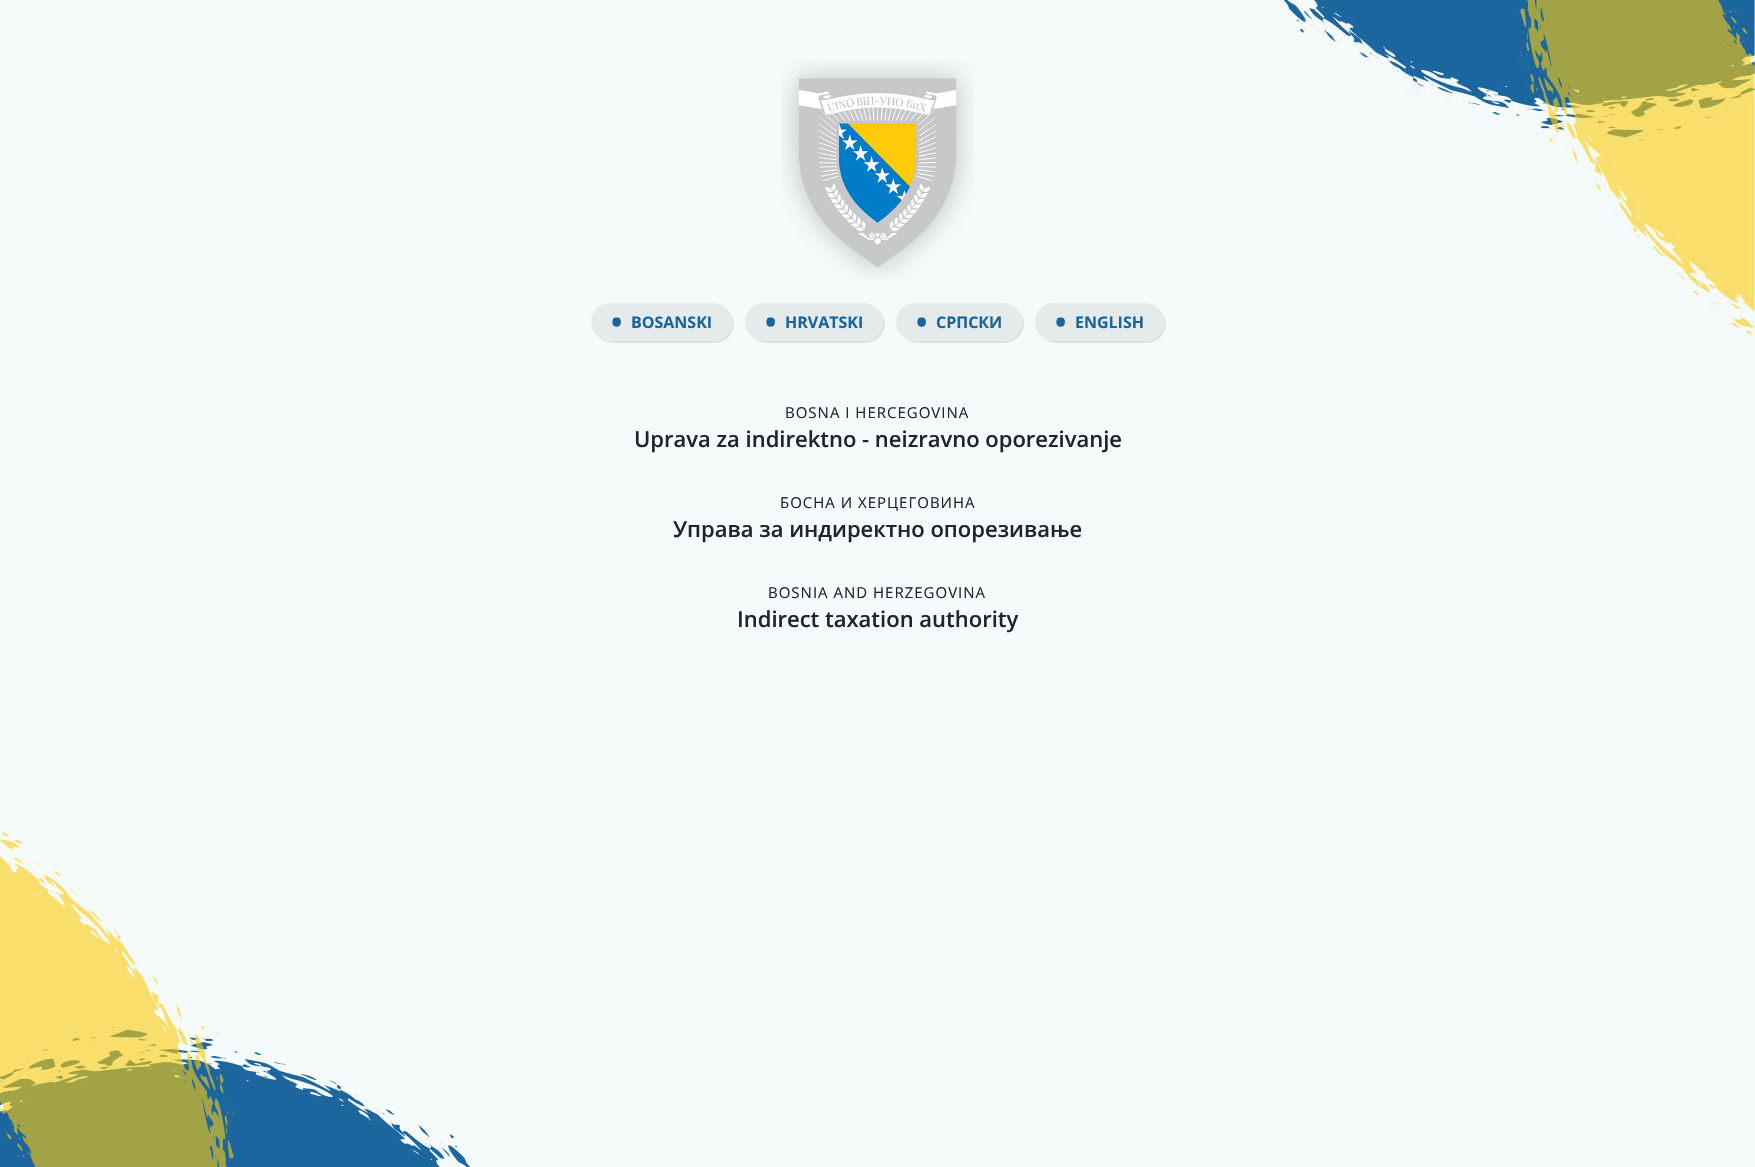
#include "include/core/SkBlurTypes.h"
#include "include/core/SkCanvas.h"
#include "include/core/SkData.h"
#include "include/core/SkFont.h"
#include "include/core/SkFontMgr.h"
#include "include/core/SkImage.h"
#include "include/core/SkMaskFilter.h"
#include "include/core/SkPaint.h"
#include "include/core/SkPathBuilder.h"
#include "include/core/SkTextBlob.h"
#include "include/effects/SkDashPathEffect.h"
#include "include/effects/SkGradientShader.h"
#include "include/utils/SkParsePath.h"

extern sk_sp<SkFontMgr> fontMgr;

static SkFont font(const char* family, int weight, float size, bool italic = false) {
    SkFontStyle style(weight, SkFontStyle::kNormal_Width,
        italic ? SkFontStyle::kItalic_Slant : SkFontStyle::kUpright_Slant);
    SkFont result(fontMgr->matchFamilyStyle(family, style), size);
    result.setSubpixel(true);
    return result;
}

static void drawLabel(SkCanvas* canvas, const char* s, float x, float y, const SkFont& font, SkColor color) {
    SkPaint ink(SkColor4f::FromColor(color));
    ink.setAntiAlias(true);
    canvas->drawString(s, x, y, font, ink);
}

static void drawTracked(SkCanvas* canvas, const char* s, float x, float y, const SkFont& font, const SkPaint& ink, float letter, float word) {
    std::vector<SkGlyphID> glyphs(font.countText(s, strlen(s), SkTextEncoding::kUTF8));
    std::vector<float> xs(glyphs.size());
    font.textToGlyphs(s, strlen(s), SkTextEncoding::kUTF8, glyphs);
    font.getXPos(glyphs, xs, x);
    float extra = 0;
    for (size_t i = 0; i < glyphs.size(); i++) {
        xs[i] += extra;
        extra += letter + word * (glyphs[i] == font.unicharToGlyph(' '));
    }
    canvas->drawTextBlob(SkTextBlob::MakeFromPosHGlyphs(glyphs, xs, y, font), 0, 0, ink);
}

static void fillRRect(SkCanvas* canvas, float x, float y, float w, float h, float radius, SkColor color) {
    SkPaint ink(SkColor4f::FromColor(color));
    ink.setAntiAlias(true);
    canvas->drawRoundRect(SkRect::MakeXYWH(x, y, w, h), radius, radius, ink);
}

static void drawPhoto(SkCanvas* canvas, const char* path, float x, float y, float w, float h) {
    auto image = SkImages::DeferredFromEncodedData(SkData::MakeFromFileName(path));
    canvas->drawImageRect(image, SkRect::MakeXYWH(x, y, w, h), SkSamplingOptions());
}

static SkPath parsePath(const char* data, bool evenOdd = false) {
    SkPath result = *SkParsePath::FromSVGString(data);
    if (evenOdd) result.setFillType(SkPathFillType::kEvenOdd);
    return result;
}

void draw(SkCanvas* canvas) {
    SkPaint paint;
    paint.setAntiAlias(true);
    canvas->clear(0xFFF5FBFB);
    drawPhoto(canvas, "assets/img1.png", 0, 829, 472, 338);
    drawPhoto(canvas, "assets/img2.png", 1279, 0, 476, 336);
    drawPhoto(canvas, "assets/img3.png", 781, 60, 193, 220);
    paint.setColor(0xFFDDE2E2);
    canvas->drawPath(parsePath("M598 336C601 340 606 343 612 343H715C725 343 734 334 734 324C734 318 731 313 727 310C730 313 732 317 732 322C732 332 723 341 713 341H610C605 341 601 339 598 336Z"), paint);
    fillRRect(canvas, 591, 303, 141, 38, 19, 0xFFE5EBEB);
    SkFont font1 = font("Open Sans", 700, 30);
    drawLabel(canvas, "•", 611, 333, font1, 0xFF1A659E);
    SkFont font2 = font("Open Sans", 700, 16);
    drawLabel(canvas, "BOSANSKI", 631, 328, font2, 0xFF1A659E);
    canvas->drawPath(parsePath("M752 336C755 340 760 343 766 343H866C876 343 885 334 885 324C885 318 882 313 878 310C881 313 883 317 883 322C883 332 874 341 864 341H764C759 341 755 339 752 336Z"), paint);
    fillRRect(canvas, 745, 303, 138, 38, 19, 0xFFE5EBEB);
    drawLabel(canvas, "•", 765, 333, font1, 0xFF1A659E);
    drawLabel(canvas, "HRVATSKI", 785, 328, font2, 0xFF1A659E);
    canvas->drawPath(parsePath("M903 336C906 340 911 343 917 343H1005C1015 343 1024 334 1024 324C1024 318 1021 313 1017 310C1020 313 1022 317 1022 322C1022 332 1013 341 1003 341H915C910 341 906 339 903 336Z"), paint);
    fillRRect(canvas, 896, 303, 126, 38, 19, 0xFFE5EBEB);
    drawLabel(canvas, "•", 916, 333, font1, 0xFF1A659E);
    drawLabel(canvas, "СРПСКИ", 936, 328, font2, 0xFF1A659E);
    canvas->drawPath(parsePath("M1042 336C1045 340 1050 343 1056 343H1147C1157 343 1166 334 1166 324C1166 318 1163 313 1159 310C1162 313 1164 317 1164 322C1164 332 1155 341 1145 341H1054C1049 341 1045 339 1042 336Z"), paint);
    fillRRect(canvas, 1035, 303, 129, 38, 19, 0xFFE5EBEB);
    drawLabel(canvas, "•", 1055, 333, font1, 0xFF1A659E);
    drawLabel(canvas, "ENGLISH", 1075, 328, font2, 0xFF1A659E);
    SkFont font3 = font("Open Sans", 400, 15);
    paint.setColor(0xFF212527);
    drawTracked(canvas, "BOSNA I HERCEGOVINA", 785, 418, font3, paint, 1, 0);
    SkFont font4 = font("Open Sans", 600, 22);
    drawLabel(canvas, "Uprava za indirektno - neizravno oporezivanje", 634, 447, font4, 0xFF212527);
    drawTracked(canvas, "БОСНА И ХЕРЦЕГОВИНА", 780, 508, font3, paint, 1, 0);
    drawLabel(canvas, "Управа за индиректно опорезивање", 673, 537, font4, 0xFF212527);
    drawTracked(canvas, "BOSNIA AND HERZEGOVINA", 768, 598, font3, paint, 1, 0);
    drawLabel(canvas, "Indirect taxation authority", 737, 627, font4, 0xFF212527);
}
